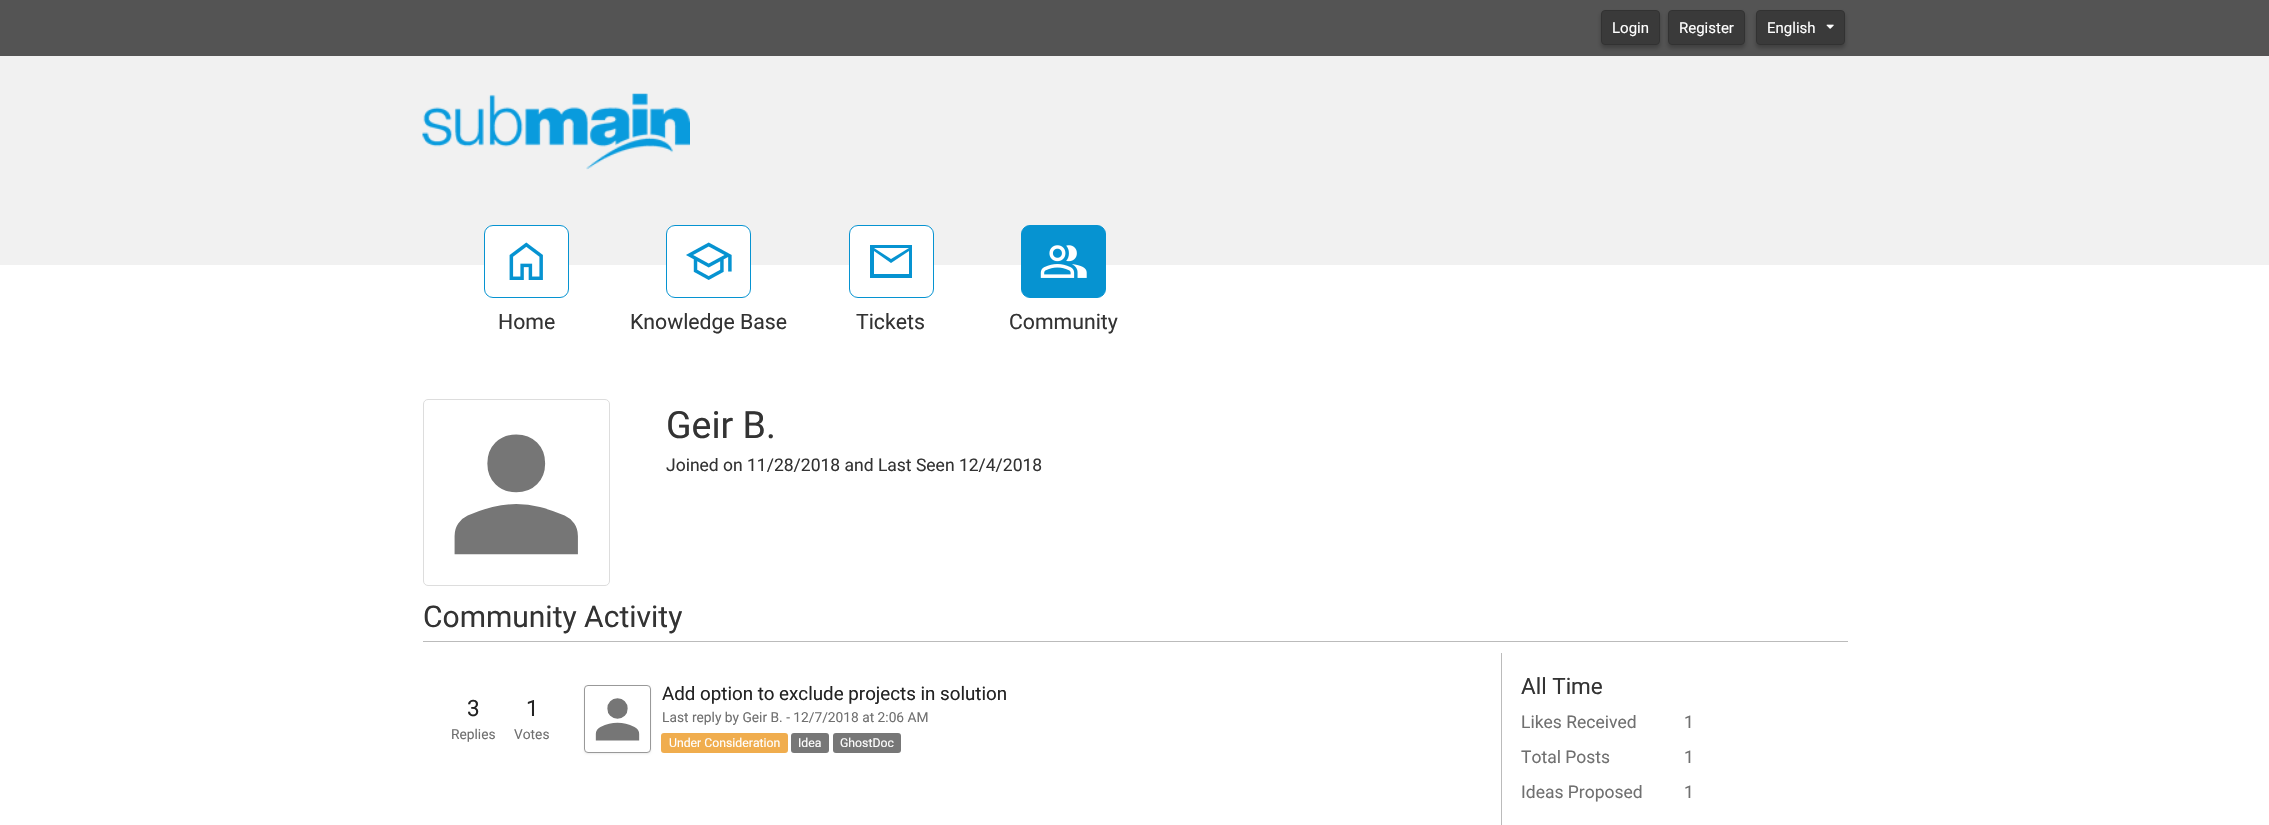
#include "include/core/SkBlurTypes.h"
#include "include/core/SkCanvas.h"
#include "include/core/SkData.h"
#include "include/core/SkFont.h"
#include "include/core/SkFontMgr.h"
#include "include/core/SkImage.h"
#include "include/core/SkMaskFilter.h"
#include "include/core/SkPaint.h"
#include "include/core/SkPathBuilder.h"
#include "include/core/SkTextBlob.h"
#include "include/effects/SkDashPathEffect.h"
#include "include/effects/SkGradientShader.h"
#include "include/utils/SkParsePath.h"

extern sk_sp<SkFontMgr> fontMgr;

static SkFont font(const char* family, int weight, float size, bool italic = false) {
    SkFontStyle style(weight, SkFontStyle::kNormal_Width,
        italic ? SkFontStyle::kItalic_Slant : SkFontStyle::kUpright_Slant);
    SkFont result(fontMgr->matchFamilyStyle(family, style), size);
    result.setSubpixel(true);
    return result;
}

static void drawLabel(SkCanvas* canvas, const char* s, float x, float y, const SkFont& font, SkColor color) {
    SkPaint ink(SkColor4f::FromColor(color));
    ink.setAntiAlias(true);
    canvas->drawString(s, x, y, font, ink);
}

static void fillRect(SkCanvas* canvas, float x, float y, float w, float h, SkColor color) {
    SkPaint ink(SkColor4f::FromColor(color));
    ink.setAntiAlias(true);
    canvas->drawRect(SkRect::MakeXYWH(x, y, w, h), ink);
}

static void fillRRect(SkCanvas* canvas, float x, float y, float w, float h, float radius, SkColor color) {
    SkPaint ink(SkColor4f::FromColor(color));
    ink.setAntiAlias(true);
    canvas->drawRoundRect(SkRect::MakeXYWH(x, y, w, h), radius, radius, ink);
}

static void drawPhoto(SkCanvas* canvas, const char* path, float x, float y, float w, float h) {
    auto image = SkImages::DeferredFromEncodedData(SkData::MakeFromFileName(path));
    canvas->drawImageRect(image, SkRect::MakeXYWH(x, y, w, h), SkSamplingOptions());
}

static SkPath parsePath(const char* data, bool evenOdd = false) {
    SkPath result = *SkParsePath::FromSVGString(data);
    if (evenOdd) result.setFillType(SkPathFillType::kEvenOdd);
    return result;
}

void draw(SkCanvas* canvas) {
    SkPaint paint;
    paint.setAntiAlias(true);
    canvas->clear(0xFFFFFFFF);
    fillRect(canvas, 0, 0, 2269, 56, 0xFF545454);
    paint.setColor(0x40000000);
    paint.setMaskFilter(SkMaskFilter::MakeBlur(kNormal_SkBlurStyle, 2));
    canvas->drawRoundRect(SkRect::MakeXYWH(1601, 13, 59, 35), 4, 4, paint);
    paint.setMaskFilter(nullptr);
    paint.setColor(0xFF3A3A3A);
    canvas->drawRoundRect(SkRect::MakeXYWH(1601.5f, 10.5f, 58, 34), 3.5f, 3.5f, paint);
    paint.setStroke(true);
    paint.setStrokeWidth(1);
    paint.setColor(0xFF323232);
    canvas->drawRoundRect(SkRect::MakeXYWH(1601.5f, 10.5f, 58, 34), 3.5f, 3.5f, paint);
    SkFont font1 = font("Roboto", 400, 15);
    drawLabel(canvas, "Login", 1612, 33, font1, 0xFFFFFFFF);
    paint.setStroke(false);
    paint.setColor(0x40000000);
    paint.setMaskFilter(SkMaskFilter::MakeBlur(kNormal_SkBlurStyle, 2));
    canvas->drawRoundRect(SkRect::MakeXYWH(1668, 13, 77, 35), 4, 4, paint);
    paint.setMaskFilter(nullptr);
    paint.setColor(0xFF3A3A3A);
    canvas->drawRoundRect(SkRect::MakeXYWH(1668.5f, 10.5f, 76, 34), 3.5f, 3.5f, paint);
    paint.setStroke(true);
    paint.setColor(0xFF323232);
    canvas->drawRoundRect(SkRect::MakeXYWH(1668.5f, 10.5f, 76, 34), 3.5f, 3.5f, paint);
    drawLabel(canvas, "Register", 1679, 33, font1, 0xFFFFFFFF);
    paint.setStroke(false);
    paint.setColor(0x40000000);
    paint.setMaskFilter(SkMaskFilter::MakeBlur(kNormal_SkBlurStyle, 2));
    canvas->drawRoundRect(SkRect::MakeXYWH(1756, 13, 89, 35), 4, 4, paint);
    paint.setMaskFilter(nullptr);
    paint.setColor(0xFF3A3A3A);
    canvas->drawRoundRect(SkRect::MakeXYWH(1756.5f, 10.5f, 88, 34), 3.5f, 3.5f, paint);
    paint.setStroke(true);
    paint.setColor(0xFF323232);
    canvas->drawRoundRect(SkRect::MakeXYWH(1756.5f, 10.5f, 88, 34), 3.5f, 3.5f, paint);
    drawLabel(canvas, "English", 1767, 33, font1, 0xFFFFFFFF);
    drawPhoto(canvas, "assets/img1.png", 1826, 24, 8, 5);
    fillRect(canvas, 0, 56, 2269, 209, 0xFFF1F1F1);
    drawPhoto(canvas, "assets/img2.png", 422, 93, 268, 77);
    paint.setStroke(false);
    paint.setColor(0xFFFFFFFF);
    canvas->drawRoundRect(SkRect::MakeXYWH(484.5f, 225.5f, 84, 72), 8.5f, 8.5f, paint);
    paint.setStroke(true);
    paint.setColor(0xFF0693D1);
    canvas->drawRoundRect(SkRect::MakeXYWH(484.5f, 225.5f, 84, 72), 8.5f, 8.5f, paint);
    drawPhoto(canvas, "assets/img3.png", 509, 242, 34, 38);
    SkFont font2 = font("Roboto", 400, 21.25f);
    drawLabel(canvas, "Home", 498, 329, font2, 0xFF333333);
    paint.setStroke(false);
    paint.setColor(0xFFFFFFFF);
    canvas->drawRoundRect(SkRect::MakeXYWH(666.5f, 225.5f, 84, 72), 8.5f, 8.5f, paint);
    paint.setStroke(true);
    paint.setColor(0xFF0693D1);
    canvas->drawRoundRect(SkRect::MakeXYWH(666.5f, 225.5f, 84, 72), 8.5f, 8.5f, paint);
    drawPhoto(canvas, "assets/img4.png", 686, 242, 46, 38);
    drawLabel(canvas, "Knowledge Base", 630, 329, font2, 0xFF333333);
    paint.setStroke(false);
    paint.setColor(0xFFFFFFFF);
    canvas->drawRoundRect(SkRect::MakeXYWH(849.5f, 225.5f, 84, 72), 8.5f, 8.5f, paint);
    paint.setStroke(true);
    paint.setColor(0xFF0693D1);
    canvas->drawRoundRect(SkRect::MakeXYWH(849.5f, 225.5f, 84, 72), 8.5f, 8.5f, paint);
    paint.setStroke(false);
    canvas->drawPath(parsePath("M870 278V245H912V278ZM891 263L874 251V274H909V251ZM891 259L909 248H874ZM874 251V248Z"), paint);
    drawLabel(canvas, "Tickets", 856, 329, font2, 0xFF333333);
    canvas->drawRoundRect(SkRect::MakeXYWH(1021.5f, 225.5f, 84, 72), 8.5f, 8.5f, paint);
    paint.setStroke(true);
    canvas->drawRoundRect(SkRect::MakeXYWH(1021.5f, 225.5f, 84, 72), 8.5f, 8.5f, paint);
    drawPhoto(canvas, "assets/img5.png", 1040, 245, 47, 33);
    drawLabel(canvas, "Community", 1009, 329, font2, 0xFF333333);
    paint.setColor(0xFFDDDDDD);
    canvas->drawRoundRect(SkRect::MakeXYWH(423.5f, 399.5f, 186, 186), 4.5f, 4.5f, paint);
    drawPhoto(canvas, "assets/img6.png", 454, 434, 124, 121);
    SkFont font3 = font("Roboto", 400, 37.5f);
    drawLabel(canvas, "Geir B.", 666, 438, font3, 0xFF333333);
    SkFont font4 = font("Roboto", 400, 17.5f);
    drawLabel(canvas, "Joined on 11/28/2018 and Last Seen 12/4/2018", 666, 471, font4, 0xFF333333);
    fillRect(canvas, 423, 641, 1425, 1, 0xFFBBBBBB);
    SkFont font5 = font("Roboto", 400, 30);
    drawLabel(canvas, "Community Activity", 423, 627, font5, 0xFF333333);
    SkFont font6 = font("Roboto", 400, 22.5f);
    drawLabel(canvas, "3", 467, 716, font6, 0xFF232323);
    SkFont font7 = font("Roboto", 400, 13.75f);
    drawLabel(canvas, "Replies", 451, 739, font7, 0xFF707070);
    drawLabel(canvas, "1", 526, 716, font6, 0xFF232323);
    drawLabel(canvas, "Votes", 514, 739, font7, 0xFF707070);
    paint.setStroke(false);
    paint.setColor(0x12000000);
    paint.setMaskFilter(SkMaskFilter::MakeBlur(kNormal_SkBlurStyle, 1));
    canvas->drawRoundRect(SkRect::MakeXYWH(584, 686, 67, 68), 4, 4, paint);
    paint.setMaskFilter(nullptr);
    paint.setColor(0xFFFFFFFF);
    canvas->drawRoundRect(SkRect::MakeXYWH(584.5f, 685.5f, 66, 67), 3.5f, 3.5f, paint);
    paint.setStroke(true);
    paint.setColor(0xFF999999);
    canvas->drawRoundRect(SkRect::MakeXYWH(584.5f, 685.5f, 66, 67), 3.5f, 3.5f, paint);
    drawPhoto(canvas, "assets/img7.png", 595, 698, 45, 43);
    SkFont font8 = font("Roboto", 400, 18.75f);
    drawLabel(canvas, "Add option to exclude projects in solution", 662, 700, font8, 0xFF232323);
    drawLabel(canvas, "Last reply by Geir B. - 12/7/2018 at 2:06 AM", 662, 722, font7, 0xFF707070);
    fillRRect(canvas, 661, 733, 127, 20, 3, 0xFFF0AD4E);
    SkFont font9 = font("Roboto", 400, 12.25f);
    drawLabel(canvas, "Under Consideration", 669, 747, font9, 0xFFFFFFFF);
    fillRRect(canvas, 791, 733, 38, 20, 3, 0xFF777777);
    drawLabel(canvas, "Idea", 798, 747, font9, 0xFFFFFFFF);
    fillRRect(canvas, 833, 733, 68, 20, 3, 0xFF777777);
    drawLabel(canvas, "GhostDoc", 840, 747, font9, 0xFFFFFFFF);
    fillRect(canvas, 1501, 653, 1, 172, 0xFFBBBBBB);
    drawLabel(canvas, "All Time", 1521, 694, font6, 0xFF333333);
    drawLabel(canvas, "Likes Received", 1521, 728, font4, 0xFF707070);
    drawLabel(canvas, "1", 1684, 728, font4, 0xFF707070);
    drawLabel(canvas, "Total Posts", 1521, 763, font4, 0xFF707070);
    drawLabel(canvas, "1", 1684, 763, font4, 0xFF707070);
    drawLabel(canvas, "Ideas Proposed", 1521, 798, font4, 0xFF707070);
    drawLabel(canvas, "1", 1684, 798, font4, 0xFF707070);
}
